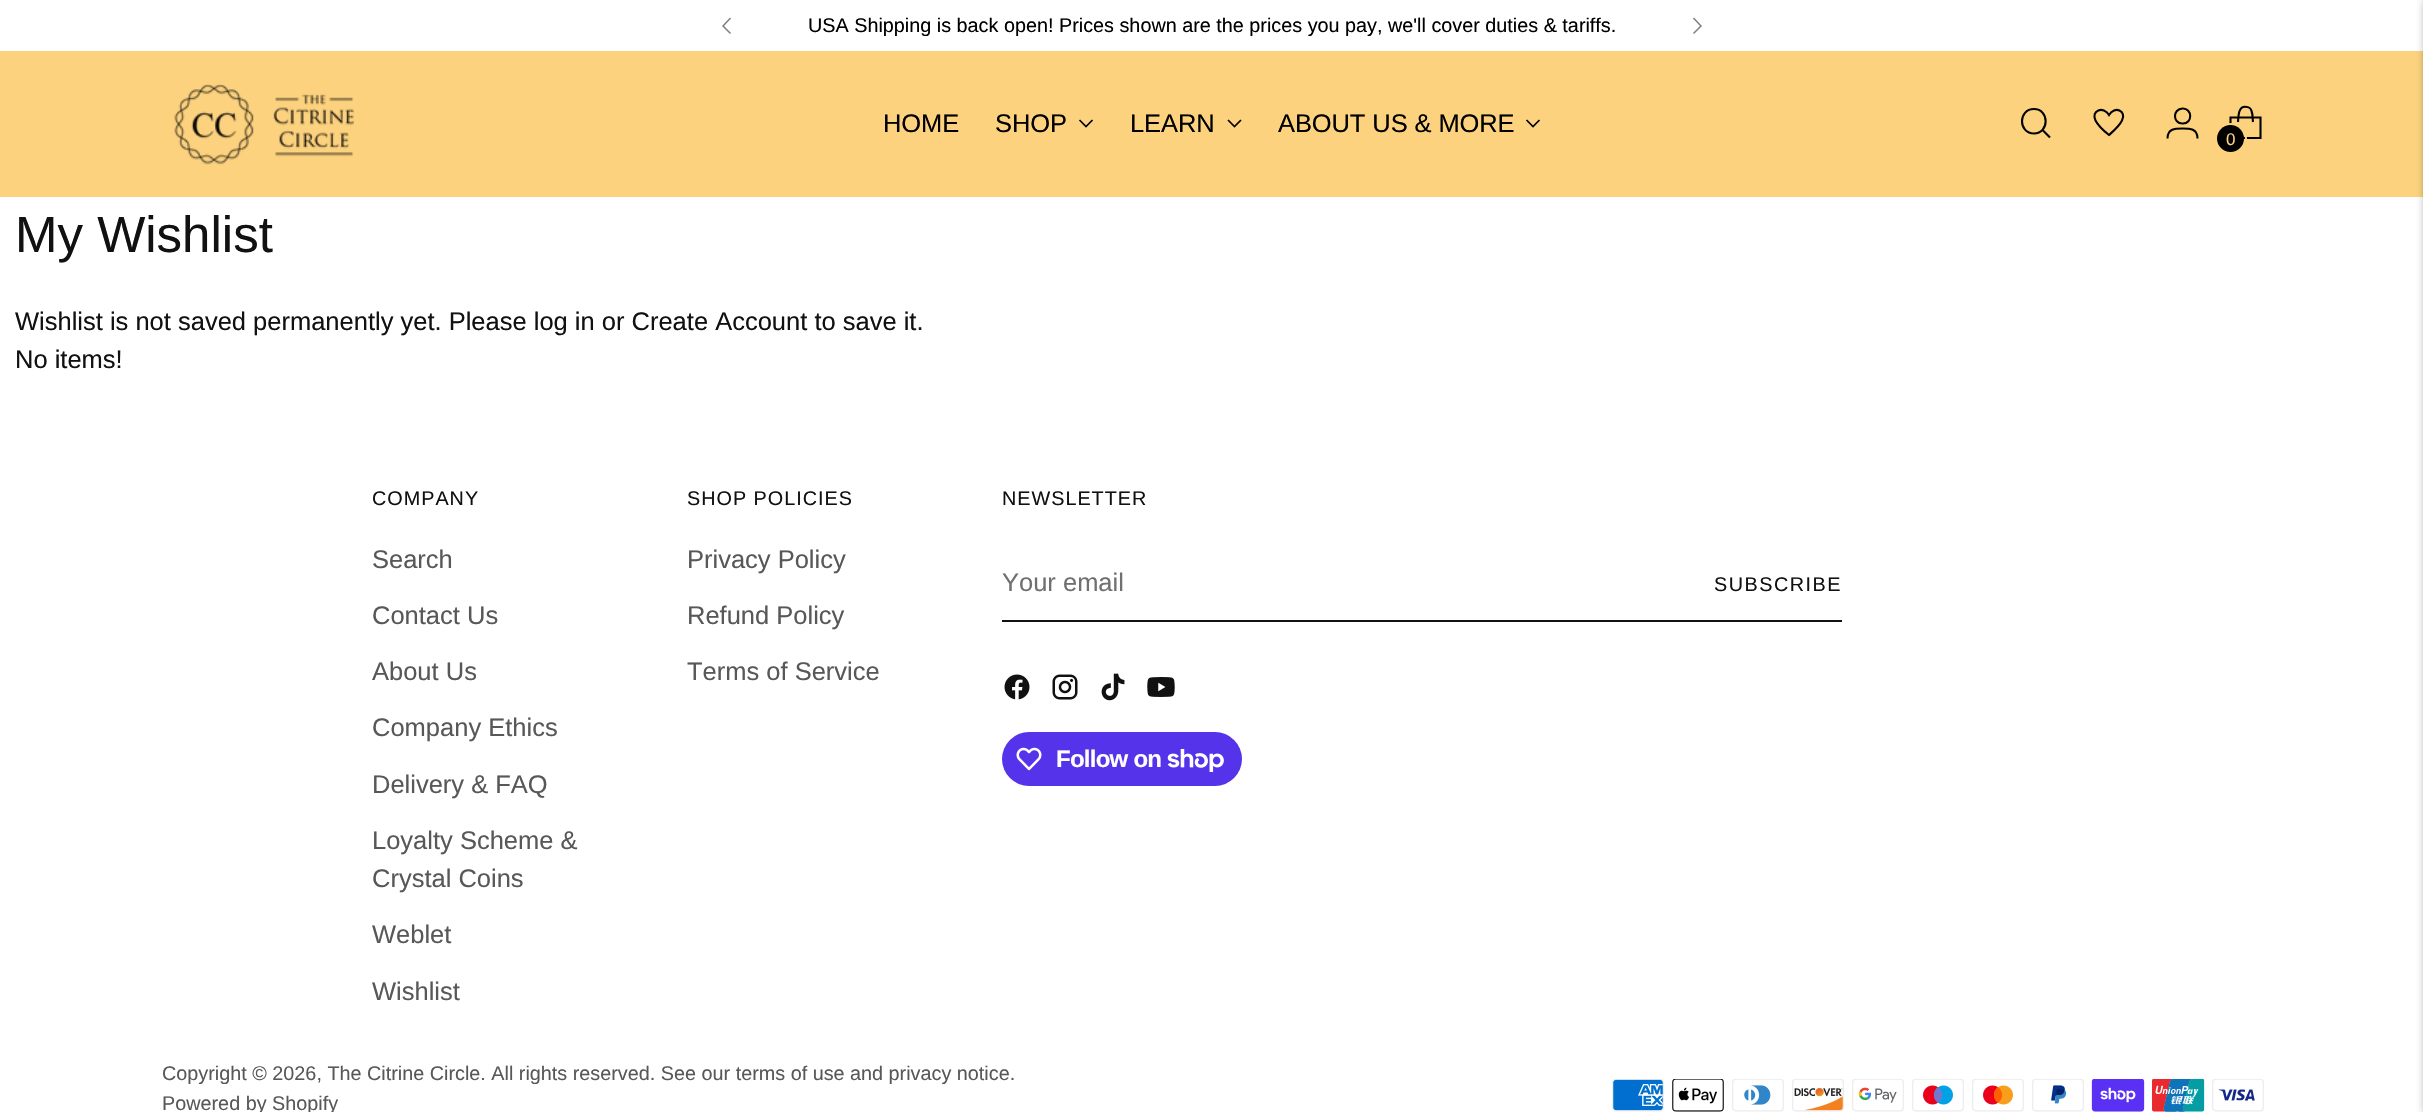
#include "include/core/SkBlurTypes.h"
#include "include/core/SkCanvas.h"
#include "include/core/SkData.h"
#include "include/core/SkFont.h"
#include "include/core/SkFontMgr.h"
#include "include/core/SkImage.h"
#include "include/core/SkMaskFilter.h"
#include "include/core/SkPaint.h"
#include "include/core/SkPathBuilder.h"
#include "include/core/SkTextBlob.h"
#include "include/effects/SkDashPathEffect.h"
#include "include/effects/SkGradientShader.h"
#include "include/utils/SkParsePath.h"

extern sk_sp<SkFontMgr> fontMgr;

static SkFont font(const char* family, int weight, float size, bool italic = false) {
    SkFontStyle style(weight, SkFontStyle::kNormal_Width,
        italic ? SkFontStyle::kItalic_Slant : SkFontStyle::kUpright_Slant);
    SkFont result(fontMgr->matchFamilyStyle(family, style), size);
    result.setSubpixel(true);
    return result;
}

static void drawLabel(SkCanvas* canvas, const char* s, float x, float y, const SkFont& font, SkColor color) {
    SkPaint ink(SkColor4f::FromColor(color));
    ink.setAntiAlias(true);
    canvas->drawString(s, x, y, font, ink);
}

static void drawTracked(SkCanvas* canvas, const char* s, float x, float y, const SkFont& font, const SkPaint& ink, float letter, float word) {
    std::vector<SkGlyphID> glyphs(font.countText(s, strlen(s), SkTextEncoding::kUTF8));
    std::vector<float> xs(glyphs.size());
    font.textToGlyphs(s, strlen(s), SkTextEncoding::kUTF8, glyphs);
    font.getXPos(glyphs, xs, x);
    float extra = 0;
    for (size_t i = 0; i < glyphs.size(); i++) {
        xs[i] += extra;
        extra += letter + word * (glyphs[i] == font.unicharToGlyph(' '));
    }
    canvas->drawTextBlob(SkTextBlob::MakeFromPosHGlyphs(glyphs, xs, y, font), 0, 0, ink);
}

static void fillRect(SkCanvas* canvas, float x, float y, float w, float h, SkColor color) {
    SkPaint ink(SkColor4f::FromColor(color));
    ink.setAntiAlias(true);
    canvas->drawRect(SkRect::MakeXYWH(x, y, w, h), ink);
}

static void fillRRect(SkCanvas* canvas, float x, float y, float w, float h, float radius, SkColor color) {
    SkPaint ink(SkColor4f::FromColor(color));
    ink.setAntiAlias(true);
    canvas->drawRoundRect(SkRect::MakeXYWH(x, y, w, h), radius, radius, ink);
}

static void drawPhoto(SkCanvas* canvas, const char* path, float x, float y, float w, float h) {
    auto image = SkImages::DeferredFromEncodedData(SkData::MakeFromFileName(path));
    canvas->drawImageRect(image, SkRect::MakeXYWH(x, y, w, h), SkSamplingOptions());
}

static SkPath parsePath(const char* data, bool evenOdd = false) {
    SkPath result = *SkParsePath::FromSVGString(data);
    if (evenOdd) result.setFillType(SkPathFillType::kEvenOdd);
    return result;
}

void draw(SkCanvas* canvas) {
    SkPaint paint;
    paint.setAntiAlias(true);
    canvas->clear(0xFFFFFFFF);
    paint.setStroke(true);
    paint.setStrokeWidth(1.5f);
    paint.setColor(0xFF808080);
    canvas->drawPath(parsePath("M730.5 18L723 26L730.5 33.5"), paint);
    canvas->drawPath(parsePath("M1693.5 33.5L1701 26L1693.5 18"), paint);
    SkFont font1 = font("Liberation Sans", 400, 19.8f);
    drawLabel(canvas, "USA Shipping is back open! Prices shown are the prices you pay, we'll cover duties & tariffs.", 808, 32, font1, 0xFF000000);
    fillRect(canvas, 0, 51, 2423, 146, 0xFFFCD27E);
    drawPhoto(canvas, "assets/img1.png", 174, 84, 180, 81);
    SkFont font2 = font("Liberation Sans", 400, 25.5f);
    paint.setStroke(false);
    paint.setColor(0xFF000000);
    drawTracked(canvas, "HOME", 883, 132, font2, paint, -0.1f, 0);
    drawTracked(canvas, "SHOP", 995, 132, font2, paint, -0.1f, 0);
    paint.setStroke(true);
    paint.setStrokeWidth(1.7f);
    canvas->drawPath(parsePath("M1079.5 120L1086 126.5L1092.5 120"), paint);
    paint.setStroke(false);
    drawTracked(canvas, "LEARN", 1130, 132, font2, paint, -0.1f, 0);
    paint.setStroke(true);
    canvas->drawPath(parsePath("M1228 120L1234.5 126.5L1241 120"), paint);
    paint.setStroke(false);
    drawTracked(canvas, "ABOUT US & MORE", 1278, 132, font2, paint, -0.1f, 0);
    paint.setStroke(true);
    canvas->drawPath(parsePath("M1526.5 120L1533 126.5L1539.5 120"), paint);
    paint.setStrokeWidth(2.1f);
    paint.setStrokeCap(SkPaint::kRound_Cap);
    canvas->drawPath(parsePath("M2034 133.5C2049.5 133.5 2049.5 109 2034 109C2018 109 2018 133.5 2034 133.5Z"), paint);
    paint.setStrokeCap(SkPaint::kButt_Cap);
    canvas->drawPath(parsePath("M2042.5 130L2050 137.5"), paint);
    canvas->drawPath(parsePath("M2109 135C2113.5 131 2119 126.5 2122 120.5C2127 110.5 2114.5 105.5 2109 115C2103.5 105.5 2090.5 110.5 2095.5 120.5C2098.5 126.5 2104 131 2109 135Z"), paint);
    canvas->drawPath(parsePath("M2182.5 123.5C2193 124 2192.5 108 2182.5 108.5C2172.5 109 2172.5 123.5 2182.5 123.5ZM2167.5 138.5C2167.5 128.5 2175 128.5 2182.5 128.5C2190 128.5 2197.5 128.5 2197.5 138.5"), paint);
    paint.setStrokeJoin(SkPaint::kBevel_Join);
    canvas->drawPath(parsePath("M2253 122C2252.5 118.5 2253 114.5 2251.5 111C2251 109 2249 107 2247 107C2238 105 2238.5 116.5 2238 122"), paint);
    paint.setStrokeJoin(SkPaint::kMiter_Join);
    canvas->drawPath(parsePath("M2260.5 138V117.5H2230.5V138Z"), paint);
    paint.setStrokeWidth(2);
    paint.setColor(0xFFFCD27E);
    canvas->drawRoundRect(SkRect::MakeXYWH(2217, 124, 29, 30), 14.5f, 14.5f, paint);
    paint.setStroke(false);
    paint.setColor(0xFF000000);
    canvas->drawCircle(2230.5f, 138.5f, 13.5f, paint);
    SkFont font3 = font("Liberation Sans", 400, 17);
    drawLabel(canvas, "0", 2226, 145, font3, 0xFFFCD27E);
    SkFont font4 = font("Liberation Sans", 400, 51);
    drawLabel(canvas, "My Wishlist", 15, 252, font4, 0xFF111111);
    drawLabel(canvas, "Wishlist is not saved permanently yet. Please log in or Create Account to save it.", 15, 330, font2, 0xFF111111);
    drawLabel(canvas, "No items!", 15, 368, font2, 0xFF111111);
    paint.setColor(0xFF111111);
    drawTracked(canvas, "COMPANY", 372, 505, font1, paint, 1, 0);
    drawLabel(canvas, "Search", 372, 568, font2, 0xFF585858);
    drawLabel(canvas, "Contact Us", 372, 624, font2, 0xFF585858);
    drawLabel(canvas, "About Us", 372, 680, font2, 0xFF585858);
    drawLabel(canvas, "Company Ethics", 372, 736, font2, 0xFF585858);
    drawLabel(canvas, "Delivery & FAQ", 372, 793, font2, 0xFF585858);
    drawLabel(canvas, "Loyalty Scheme &", 372, 849, font2, 0xFF585858);
    drawLabel(canvas, "Crystal Coins", 372, 887, font2, 0xFF585858);
    drawLabel(canvas, "Weblet", 372, 943, font2, 0xFF585858);
    drawLabel(canvas, "Wishlist", 372, 1000, font2, 0xFF585858);
    drawTracked(canvas, "SHOP POLICIES", 687, 505, font1, paint, 1, 0);
    drawLabel(canvas, "Privacy Policy", 687, 568, font2, 0xFF585858);
    drawLabel(canvas, "Refund Policy", 687, 624, font2, 0xFF585858);
    drawLabel(canvas, "Terms of Service", 687, 680, font2, 0xFF585858);
    drawTracked(canvas, "NEWSLETTER", 1002, 505, font1, paint, 1, 0);
    fillRect(canvas, 1002, 620, 840, 2, 0xFF111111);
    drawLabel(canvas, "Your email", 1002, 591, font2, 0xFF707070);
    drawTracked(canvas, "SUBSCRIBE", 1714, 591, font1, paint, 1.5f, 0);
    drawPhoto(canvas, "assets/img2.png", 1004, 674, 26, 26);
    drawPhoto(canvas, "assets/img3.png", 1052, 674, 26, 26);
    drawPhoto(canvas, "assets/img4.png", 1101, 673, 24, 28);
    drawPhoto(canvas, "assets/img5.png", 1147, 677, 28, 20);
    fillRRect(canvas, 1002, 732, 240, 54, 27, 0xFF5433EB);
    drawPhoto(canvas, "assets/img6.png", 1016, 747, 26, 24);
    SkFont font5 = font("Liberation Sans", 700, 24);
    paint.setColor(0xFFFFFFFF);
    drawTracked(canvas, "Follow on", 1056, 767, font5, paint, -0.75f, 0);
    drawPhoto(canvas, "assets/img7.png", 1167, 749, 57, 23);
    drawLabel(canvas, "Copyright © 2026, The Citrine Circle. All rights reserved. See our terms of use and privacy notice.", 162, 1080, font1, 0xFF585858);
    drawLabel(canvas, "Powered by Shopify", 162, 1110, font1, 0xFF585858);
    drawPhoto(canvas, "assets/img8.png", 1612, 1079, 52, 33);
    drawPhoto(canvas, "assets/img9.png", 1672, 1079, 52, 33);
    drawPhoto(canvas, "assets/img10.png", 1732, 1079, 52, 33);
    drawPhoto(canvas, "assets/img11.png", 1792, 1079, 52, 33);
    drawPhoto(canvas, "assets/img12.png", 1852, 1079, 52, 33);
    drawPhoto(canvas, "assets/img13.png", 1912, 1079, 52, 33);
    drawPhoto(canvas, "assets/img14.png", 1972, 1079, 52, 33);
    drawPhoto(canvas, "assets/img15.png", 2032, 1079, 52, 33);
    drawPhoto(canvas, "assets/img16.png", 2091, 1079, 54, 33);
    drawPhoto(canvas, "assets/img17.png", 2152, 1079, 53, 33);
    drawPhoto(canvas, "assets/img18.png", 2212, 1079, 52, 33);
    paint.setColor(0x80000000);
    paint.setMaskFilter(SkMaskFilter::MakeBlur(kNormal_SkBlurStyle, 5));
    canvas->drawRect(SkRect::MakeXYWH(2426, 0, 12, 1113), paint);
    paint.setMaskFilter(nullptr);
}
